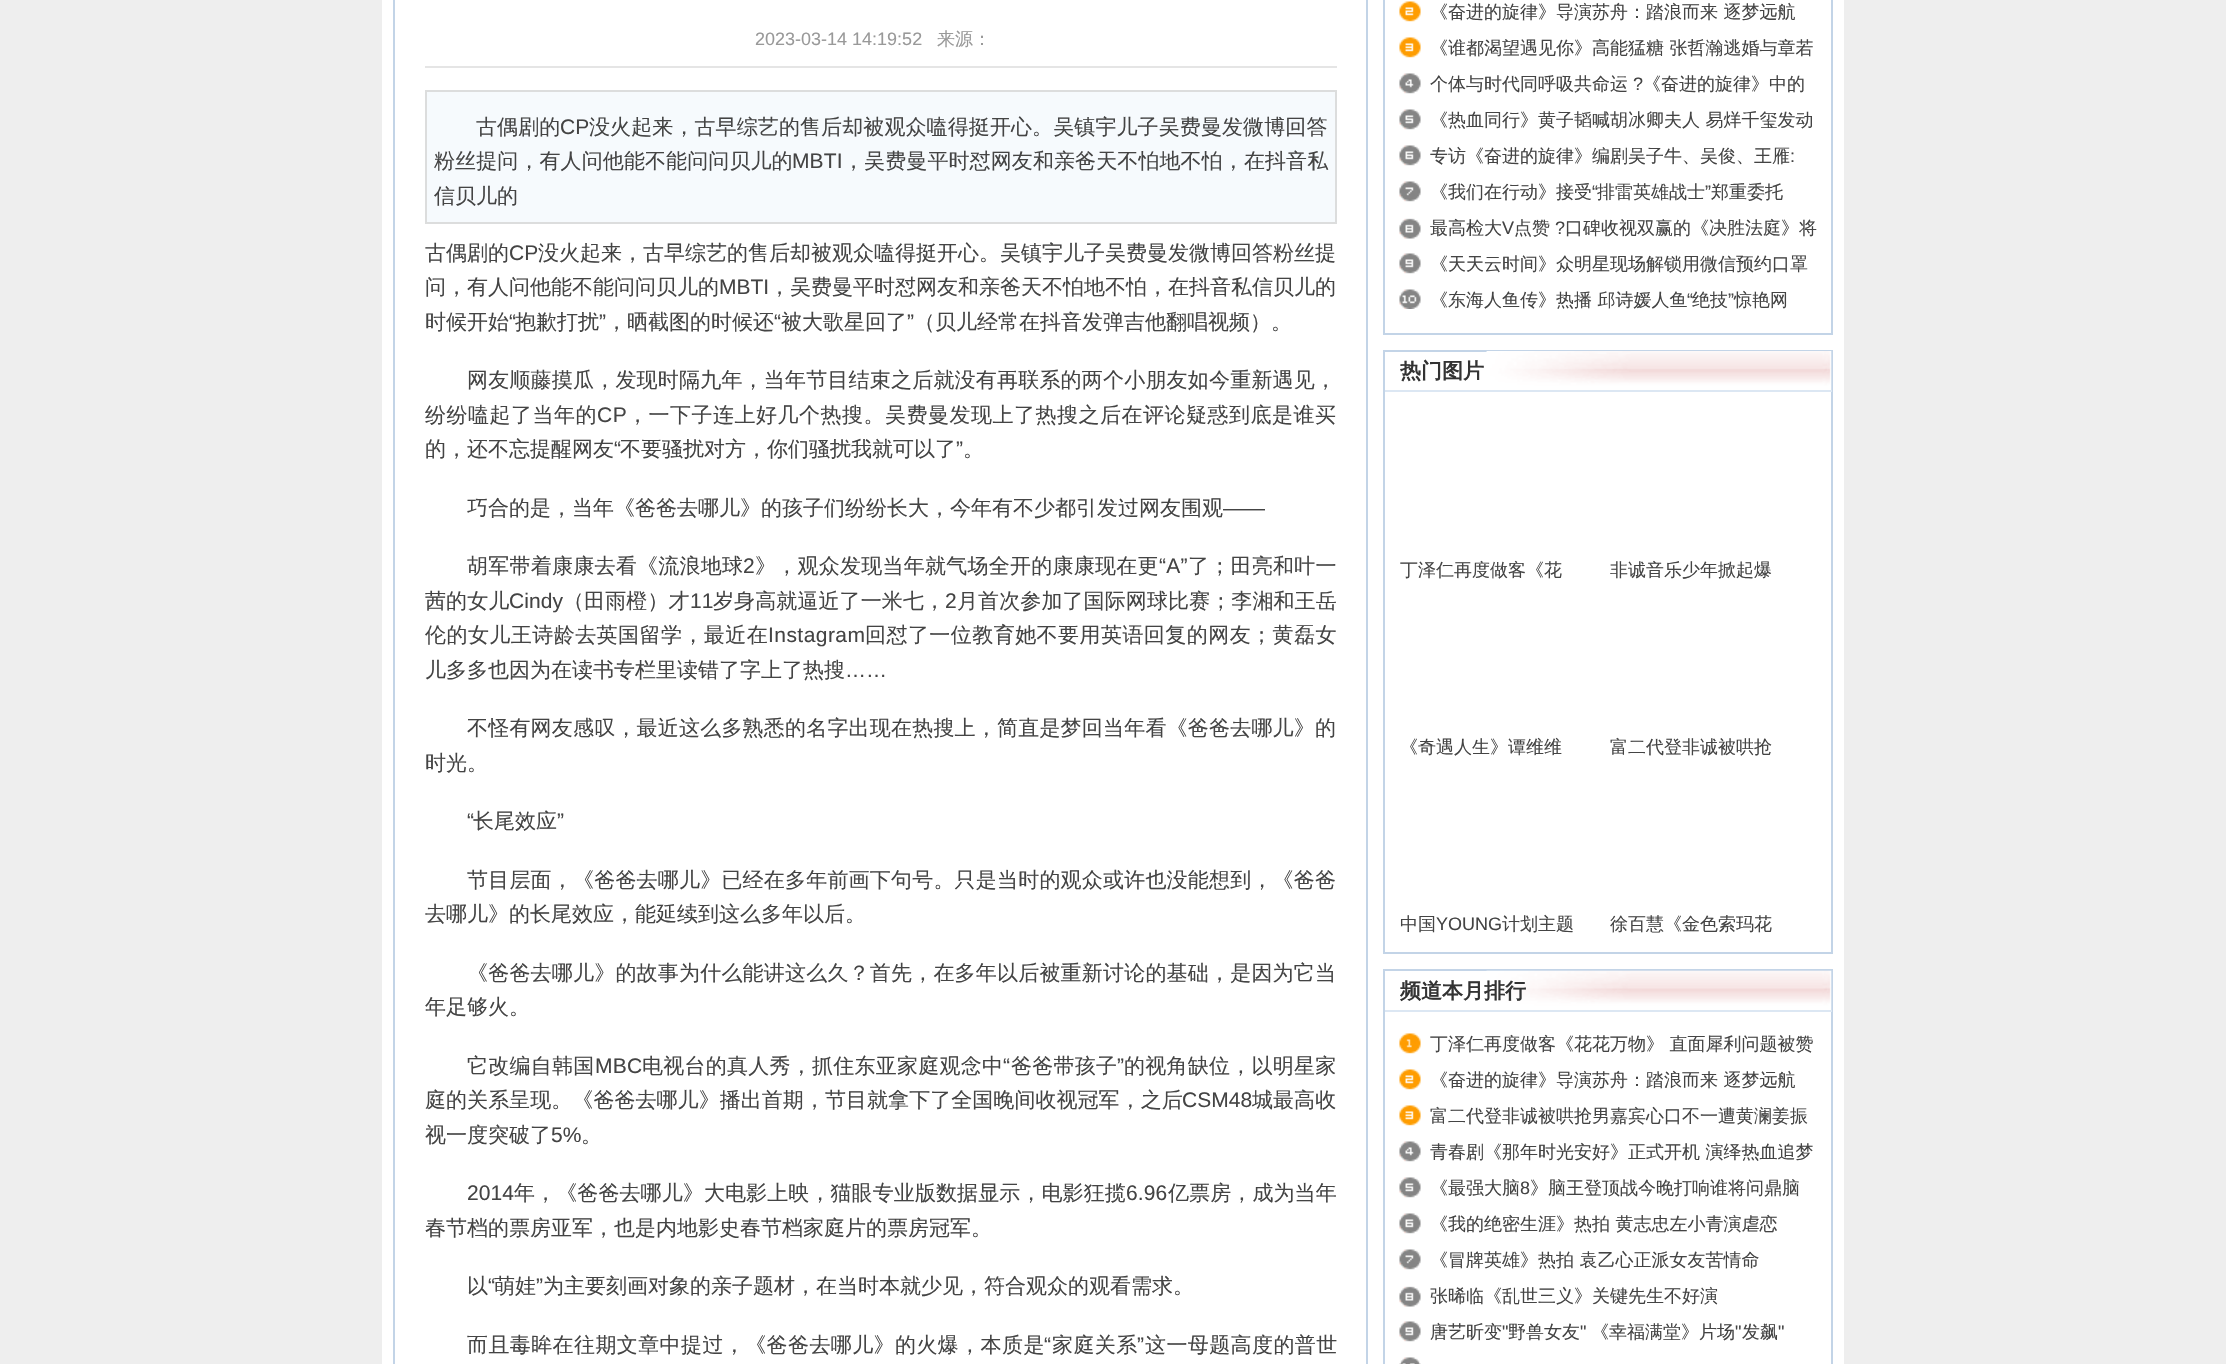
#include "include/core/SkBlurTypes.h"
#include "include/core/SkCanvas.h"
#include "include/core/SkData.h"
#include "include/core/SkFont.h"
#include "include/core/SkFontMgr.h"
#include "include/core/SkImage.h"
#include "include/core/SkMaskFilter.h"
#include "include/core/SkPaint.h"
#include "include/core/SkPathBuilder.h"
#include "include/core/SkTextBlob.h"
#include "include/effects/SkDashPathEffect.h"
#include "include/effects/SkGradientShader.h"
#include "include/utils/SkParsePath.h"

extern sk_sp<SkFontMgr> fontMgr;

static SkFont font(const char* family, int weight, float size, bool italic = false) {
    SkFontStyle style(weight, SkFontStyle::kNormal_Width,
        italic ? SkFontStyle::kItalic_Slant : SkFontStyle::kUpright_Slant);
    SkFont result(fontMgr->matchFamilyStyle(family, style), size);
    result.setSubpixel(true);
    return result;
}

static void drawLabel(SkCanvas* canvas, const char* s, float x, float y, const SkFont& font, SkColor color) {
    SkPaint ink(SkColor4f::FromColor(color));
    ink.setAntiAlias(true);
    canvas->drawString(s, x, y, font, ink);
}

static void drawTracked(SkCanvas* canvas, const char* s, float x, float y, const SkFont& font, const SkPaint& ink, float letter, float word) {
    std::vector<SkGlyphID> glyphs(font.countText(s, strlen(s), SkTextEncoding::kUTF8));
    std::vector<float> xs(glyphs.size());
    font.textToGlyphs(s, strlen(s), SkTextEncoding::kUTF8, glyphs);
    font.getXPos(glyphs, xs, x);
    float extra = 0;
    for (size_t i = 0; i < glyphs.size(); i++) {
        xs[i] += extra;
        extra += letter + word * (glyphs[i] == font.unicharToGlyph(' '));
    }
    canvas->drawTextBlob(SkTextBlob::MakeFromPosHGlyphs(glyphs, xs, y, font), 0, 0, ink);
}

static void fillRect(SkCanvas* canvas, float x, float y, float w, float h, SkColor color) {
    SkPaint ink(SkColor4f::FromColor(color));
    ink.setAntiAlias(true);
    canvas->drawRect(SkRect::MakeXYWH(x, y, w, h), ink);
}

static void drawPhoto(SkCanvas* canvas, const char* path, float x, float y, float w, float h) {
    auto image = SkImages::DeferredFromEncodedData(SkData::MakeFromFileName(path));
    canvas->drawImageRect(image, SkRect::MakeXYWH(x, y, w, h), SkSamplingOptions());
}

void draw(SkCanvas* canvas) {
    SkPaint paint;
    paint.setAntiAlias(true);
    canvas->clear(0xFFEEEEEE);
    fillRect(canvas, 382, 0, 1462, 1364, 0xFFFFFFFF);
    paint.setStroke(true);
    paint.setStrokeWidth(2);
    paint.setColor(0xFFC3D4E7);
    canvas->drawRect(SkRect::MakeXYWH(394, -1, 973, 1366), paint);
    fillRect(canvas, 425, 66, 912, 2, 0xFFE5E5E5);
    SkFont font1 = font("Liberation Sans", 400, 18);
    drawLabel(canvas, "2023-03-14 14:19:52", 755, 45, font1, 0xFF999999);
    SkFont font2 = font("WenQuanYi Zen Hei", 500, 18);
    drawLabel(canvas, "来源：", 937, 45, font2, 0xFF999999);
    paint.setStroke(false);
    paint.setColor(0xFFF6FAFD);
    canvas->drawRect(SkRect::MakeXYWH(426, 91, 910, 132), paint);
    paint.setStroke(true);
    paint.setColor(0xFFDCDDDD);
    canvas->drawRect(SkRect::MakeXYWH(426, 91, 910, 132), paint);
    SkFont font3 = font("WenQuanYi Zen Hei", 500, 21);
    paint.setStroke(false);
    paint.setColor(0xFF444444);
    drawTracked(canvas, "古偶剧的", 476, 134, font3, paint, 0.1f, 0);
    SkFont font4 = font("Liberation Sans", 400, 21);
    drawTracked(canvas, "CP", 560, 134, font4, paint, 0.1f, 0);
    drawTracked(canvas, "没火起来，古早综艺的售后却被观众嗑得挺开心。吴镇宇儿子吴费曼发微博回答", 589, 134, font3, paint, 0.1f, 0);
    drawTracked(canvas, "粉丝提问，有人问他能不能问问贝儿的", 434, 168, font3, paint, 0.1f, 0);
    drawTracked(canvas, "MBTI", 792, 168, font4, paint, 0.1f, 0);
    drawTracked(canvas, "，吴费曼平时怼网友和亲爸天不怕地不怕，在抖音私", 843, 168, font3, paint, 0.1f, 0);
    drawLabel(canvas, "信贝儿的", 434, 203, font3, 0xFF444444);
    drawLabel(canvas, "古偶剧的", 425, 260, font3, 0xFF444444);
    drawLabel(canvas, "CP", 509, 260, font4, 0xFF444444);
    drawLabel(canvas, "没火起来，古早综艺的售后却被观众嗑得挺开心。吴镇宇儿子吴费曼发微博回答粉丝提", 538, 260, font3, 0xFF444444);
    drawLabel(canvas, "问，有人问他能不能问问贝儿的", 425, 294, font3, 0xFF444444);
    drawLabel(canvas, "MBTI", 719, 294, font4, 0xFF444444);
    drawLabel(canvas, "，吴费曼平时怼网友和亲爸天不怕地不怕，在抖音私信贝儿的", 769, 294, font3, 0xFF444444);
    drawLabel(canvas, "时候开始", 425, 329, font3, 0xFF444444);
    drawLabel(canvas, "“", 509, 329, font4, 0xFF444444);
    drawLabel(canvas, "抱歉打扰", 515, 329, font3, 0xFF444444);
    drawLabel(canvas, "”", 599, 329, font4, 0xFF444444);
    drawLabel(canvas, "，晒截图的时候还", 606, 329, font3, 0xFF444444);
    drawLabel(canvas, "“", 774, 329, font4, 0xFF444444);
    drawLabel(canvas, "被大歌星回了", 781, 329, font3, 0xFF444444);
    drawLabel(canvas, "”", 907, 329, font4, 0xFF444444);
    drawLabel(canvas, "（贝儿经常在抖音发弹吉他翻唱视频）。", 914, 329, font3, 0xFF444444);
    drawTracked(canvas, "网友顺藤摸瓜，发现时隔九年，当年节目结束之后就没有再联系的两个小朋友如今重新遇见，", 467, 387, font3, paint, 0.2f, 0);
    drawTracked(canvas, "纷纷嗑起了当年的", 425, 422, font3, paint, 0.5f, 0);
    drawTracked(canvas, "CP", 597, 422, font4, paint, 0.5f, 0);
    drawTracked(canvas, "，一下子连上好几个热搜。吴费曼发现上了热搜之后在评论疑惑到底是谁买", 627, 422, font3, paint, 0.5f, 0);
    drawLabel(canvas, "的，还不忘提醒网友", 425, 456, font3, 0xFF444444);
    drawLabel(canvas, "“", 614, 456, font4, 0xFF444444);
    drawLabel(canvas, "不要骚扰对方，你们骚扰我就可以了", 620, 456, font3, 0xFF444444);
    drawLabel(canvas, "”", 956, 456, font4, 0xFF444444);
    drawLabel(canvas, "。", 963, 456, font3, 0xFF444444);
    drawLabel(canvas, "巧合的是，当年《爸爸去哪儿》的孩子们纷纷长大，今年有不少都引发过网友围观", 467, 515, font3, 0xFF444444);
    drawLabel(canvas, "——", 1223, 515, font4, 0xFF444444);
    drawTracked(canvas, "胡军带着康康去看《流浪地球", 467, 573, font3, paint, 0.25f, 0);
    drawTracked(canvas, "2", 743, 573, font4, paint, 0.25f, 0);
    drawTracked(canvas, "》，观众发现当年就气场全开的康康现在更", 755, 573, font3, paint, 0.25f, 0);
    drawTracked(canvas, "“A”", 1159, 573, font4, paint, 0.25f, 0);
    drawTracked(canvas, "了；田亮和叶一", 1188, 573, font3, paint, 0.25f, 0);
    drawTracked(canvas, "茜的女儿", 425, 608, font3, paint, 0.1f, 0);
    drawTracked(canvas, "Cindy", 509, 608, font4, paint, 0.1f, 0);
    drawTracked(canvas, "（田雨橙）才", 563, 608, font3, paint, 0.1f, 0);
    drawTracked(canvas, "11", 690, 608, font4, paint, 0.1f, 0);
    drawTracked(canvas, "岁身高就逼近了一米七，", 713, 608, font3, paint, 0.1f, 0);
    drawTracked(canvas, "2", 945, 608, font4, paint, 0.1f, 0);
    drawTracked(canvas, "月首次参加了国际网球比赛；李湘和王岳", 957, 608, font3, paint, 0.1f, 0);
    drawTracked(canvas, "伦的女儿王诗龄去英国留学，最近在", 425, 642, font3, paint, 0.45f, 0);
    drawTracked(canvas, "Instagram", 768, 642, font4, paint, 0.45f, 0);
    drawTracked(canvas, "回怼了一位教育她不要用英语回复的网友；黄磊女", 865, 642, font3, paint, 0.45f, 0);
    drawLabel(canvas, "儿多多也因为在读书专栏里读错了字上了热搜", 425, 677, font3, 0xFF444444);
    drawLabel(canvas, "……", 845, 677, font4, 0xFF444444);
    drawTracked(canvas, "不怪有网友感叹，最近这么多熟悉的名字出现在热搜上，简直是梦回当年看《爸爸去哪儿》的", 467, 735, font3, paint, 0.2f, 0);
    drawLabel(canvas, "时光。", 425, 770, font3, 0xFF444444);
    drawLabel(canvas, "“", 467, 828, font4, 0xFF444444);
    drawLabel(canvas, "长尾效应", 473, 828, font3, 0xFF444444);
    drawLabel(canvas, "”", 557, 828, font4, 0xFF444444);
    drawTracked(canvas, "节目层面，《爸爸去哪儿》已经在多年前画下句号。只是当时的观众或许也没能想到，《爸爸", 467, 887, font3, paint, 0.2f, 0);
    drawLabel(canvas, "去哪儿》的长尾效应，能延续到这么多年以后。", 425, 921, font3, 0xFF444444);
    drawTracked(canvas, "《爸爸去哪儿》的故事为什么能讲这么久？首先，在多年以后被重新讨论的基础，是因为它当", 467, 980, font3, paint, 0.2f, 0);
    drawLabel(canvas, "年足够火。", 425, 1014, font3, 0xFF444444);
    drawTracked(canvas, "它改编自韩国", 467, 1073, font3, paint, 0.25f, 0);
    drawTracked(canvas, "MBC", 595, 1073, font4, paint, 0.25f, 0);
    drawTracked(canvas, "电视台的真人秀，抓住东亚家庭观念中", 642, 1073, font3, paint, 0.25f, 0);
    drawTracked(canvas, "“", 1003, 1073, font4, paint, 0.25f, 0);
    drawTracked(canvas, "爸爸带孩子", 1011, 1073, font3, paint, 0.25f, 0);
    drawTracked(canvas, "”", 1117, 1073, font4, paint, 0.25f, 0);
    drawTracked(canvas, "的视角缺位，以明星家", 1124, 1073, font3, paint, 0.25f, 0);
    drawTracked(canvas, "庭的关系呈现。《爸爸去哪儿》播出首期，节目就拿下了全国晚间收视冠军，之后", 425, 1107, font3, paint, 0.05f, 0);
    drawTracked(canvas, "CSM48", 1182, 1107, font4, paint, 0.05f, 0);
    drawTracked(canvas, "城最高收", 1252, 1107, font3, paint, 0.05f, 0);
    drawLabel(canvas, "视一度突破了", 425, 1142, font3, 0xFF444444);
    drawLabel(canvas, "5%", 551, 1142, font4, 0xFF444444);
    drawLabel(canvas, "。", 581, 1142, font3, 0xFF444444);
    drawTracked(canvas, "2014", 467, 1200, font4, paint, 0.1f, 0);
    drawTracked(canvas, "年，《爸爸去哪儿》大电影上映，猫眼专业版数据显示，电影狂揽", 514, 1200, font3, paint, 0.1f, 0);
    drawTracked(canvas, "6.96", 1126, 1200, font4, paint, 0.1f, 0);
    drawTracked(canvas, "亿票房，成为当年", 1168, 1200, font3, paint, 0.1f, 0);
    drawLabel(canvas, "春节档的票房亚军，也是内地影史春节档家庭片的票房冠军。", 425, 1235, font3, 0xFF444444);
    drawLabel(canvas, "以", 467, 1293, font3, 0xFF444444);
    drawLabel(canvas, "“", 488, 1293, font4, 0xFF444444);
    drawLabel(canvas, "萌娃", 494, 1293, font3, 0xFF444444);
    drawLabel(canvas, "”", 536, 1293, font4, 0xFF444444);
    drawLabel(canvas, "为主要刻画对象的亲子题材，在当时本就少见，符合观众的观看需求。", 543, 1293, font3, 0xFF444444);
    drawTracked(canvas, "而且毒眸在往期文章中提过，《爸爸去哪儿》的火爆，本质是", 467, 1352, font3, paint, 0.4f, 0);
    drawTracked(canvas, "“", 1044, 1352, font4, paint, 0.4f, 0);
    drawTracked(canvas, "家庭关系", 1052, 1352, font3, paint, 0.4f, 0);
    drawTracked(canvas, "”", 1137, 1352, font4, paint, 0.4f, 0);
    drawTracked(canvas, "这一母题高度的普世", 1145, 1352, font3, paint, 0.4f, 0);
    paint.setStroke(true);
    paint.setColor(0xFFC3D4E7);
    canvas->drawRect(SkRect::MakeXYWH(1384, -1, 448, 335), paint);
    drawPhoto(canvas, "assets/img1.png", 1399, 1, 22, 308);
    drawLabel(canvas, "《奋进的旋律》导演苏舟：踏浪而来 逐梦远航", 1430, 18, font2, 0xFF444444);
    drawLabel(canvas, "《谁都渴望遇见你》高能猛糖 张哲瀚逃婚与章若", 1430, 54, font2, 0xFF444444);
    drawLabel(canvas, "个体与时代同呼吸共命运", 1430, 90, font2, 0xFF444444);
    drawLabel(canvas, "?", 1633, 90, font1, 0xFF444444);
    drawLabel(canvas, "《奋进的旋律》中的", 1643, 90, font2, 0xFF444444);
    drawLabel(canvas, "《热血同行》黄子韬喊胡冰卿夫人 易烊千玺发动", 1430, 126, font2, 0xFF444444);
    drawLabel(canvas, "专访《奋进的旋律》编剧吴子牛、吴俊、王雁", 1430, 162, font2, 0xFF444444);
    drawLabel(canvas, ":", 1790, 162, font1, 0xFF444444);
    drawLabel(canvas, "《我们在行动》接受", 1430, 198, font2, 0xFF444444);
    drawLabel(canvas, "“", 1592, 198, font1, 0xFF444444);
    drawLabel(canvas, "排雷英雄战士", 1597, 198, font2, 0xFF444444);
    drawLabel(canvas, "”", 1705, 198, font1, 0xFF444444);
    drawLabel(canvas, "郑重委托", 1711, 198, font2, 0xFF444444);
    drawLabel(canvas, "最高检大", 1430, 234, font2, 0xFF444444);
    drawLabel(canvas, "V", 1502, 234, font1, 0xFF444444);
    drawLabel(canvas, "点赞", 1514, 234, font2, 0xFF444444);
    drawLabel(canvas, "?", 1555, 234, font1, 0xFF444444);
    drawLabel(canvas, "口碑收视双赢的《决胜法庭》将", 1565, 234, font2, 0xFF444444);
    drawLabel(canvas, "《天天云时间》众明星现场解锁用微信预约口罩", 1430, 270, font2, 0xFF444444);
    drawLabel(canvas, "《东海人鱼传》热播 邱诗媛人鱼", 1430, 306, font2, 0xFF444444);
    drawLabel(canvas, "“", 1687, 306, font1, 0xFF444444);
    drawLabel(canvas, "绝技", 1692, 306, font2, 0xFF444444);
    drawLabel(canvas, "”", 1728, 306, font1, 0xFF444444);
    drawLabel(canvas, "惊艳网", 1734, 306, font2, 0xFF444444);
    canvas->drawRect(SkRect::MakeXYWH(1384, 351, 448, 602), paint);
    drawPhoto(canvas, "assets/img2.png", 1486, 351, 346, 39);
    fillRect(canvas, 1385, 390, 447, 2, 0xFFDCE7F3);
    SkFont font5 = font("WenQuanYi Zen Hei", 700, 21);
    drawLabel(canvas, "热门图片", 1400, 378, font5, 0xFF333333);
    drawLabel(canvas, "丁泽仁再度做客《花", 1400, 576, font2, 0xFF444444);
    drawLabel(canvas, "非诚音乐少年掀起爆", 1610, 576, font2, 0xFF444444);
    drawLabel(canvas, "《奇遇人生》谭维维", 1400, 753, font2, 0xFF444444);
    drawLabel(canvas, "富二代登非诚被哄抢", 1610, 753, font2, 0xFF444444);
    drawLabel(canvas, "中国", 1400, 930, font2, 0xFF444444);
    drawLabel(canvas, "YOUNG", 1436, 930, font1, 0xFF444444);
    drawLabel(canvas, "计划主题", 1502, 930, font2, 0xFF444444);
    drawLabel(canvas, "徐百慧《金色索玛花", 1610, 930, font2, 0xFF444444);
    canvas->drawRect(SkRect::MakeXYWH(1384, 970, 448, 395), paint);
    drawPhoto(canvas, "assets/img3.png", 1486, 970, 346, 40);
    fillRect(canvas, 1385, 1010, 447, 2, 0xFFDCE7F3);
    drawLabel(canvas, "频道本月排行", 1400, 998, font5, 0xFF333333);
    drawPhoto(canvas, "assets/img4.png", 1399, 1033, 22, 331);
    drawLabel(canvas, "丁泽仁再度做客《花花万物》 直面犀利问题被赞", 1430, 1050, font2, 0xFF444444);
    drawLabel(canvas, "《奋进的旋律》导演苏舟：踏浪而来 逐梦远航", 1430, 1086, font2, 0xFF444444);
    drawLabel(canvas, "富二代登非诚被哄抢男嘉宾心口不一遭黄澜姜振", 1430, 1122, font2, 0xFF444444);
    drawLabel(canvas, "青春剧《那年时光安好》正式开机 演绎热血追梦", 1430, 1158, font2, 0xFF444444);
    drawLabel(canvas, "《最强大脑", 1430, 1194, font2, 0xFF444444);
    drawLabel(canvas, "8", 1520, 1194, font1, 0xFF444444);
    drawLabel(canvas, "》脑王登顶战今晚打响谁将问鼎脑", 1530, 1194, font2, 0xFF444444);
    drawLabel(canvas, "《我的绝密生涯》热拍 黄志忠左小青演虐恋", 1430, 1230, font2, 0xFF444444);
    drawLabel(canvas, "《冒牌英雄》热拍 袁乙心正派女友苦情命", 1430, 1266, font2, 0xFF444444);
    drawLabel(canvas, "张晞临《乱世三义》关键先生不好演", 1430, 1302, font2, 0xFF444444);
    drawLabel(canvas, "唐艺昕变", 1430, 1338, font2, 0xFF444444);
    drawLabel(canvas, "\"", 1502, 1338, font1, 0xFF444444);
    drawLabel(canvas, "野兽女友", 1508, 1338, font2, 0xFF444444);
    drawLabel(canvas, "\"", 1580, 1338, font1, 0xFF444444);
    drawLabel(canvas, "《幸福满堂》片场", 1591, 1338, font2, 0xFF444444);
    drawLabel(canvas, "\"", 1735, 1338, font1, 0xFF444444);
    drawLabel(canvas, "发飙", 1742, 1338, font2, 0xFF444444);
    drawLabel(canvas, "\"", 1778, 1338, font1, 0xFF444444);
}
